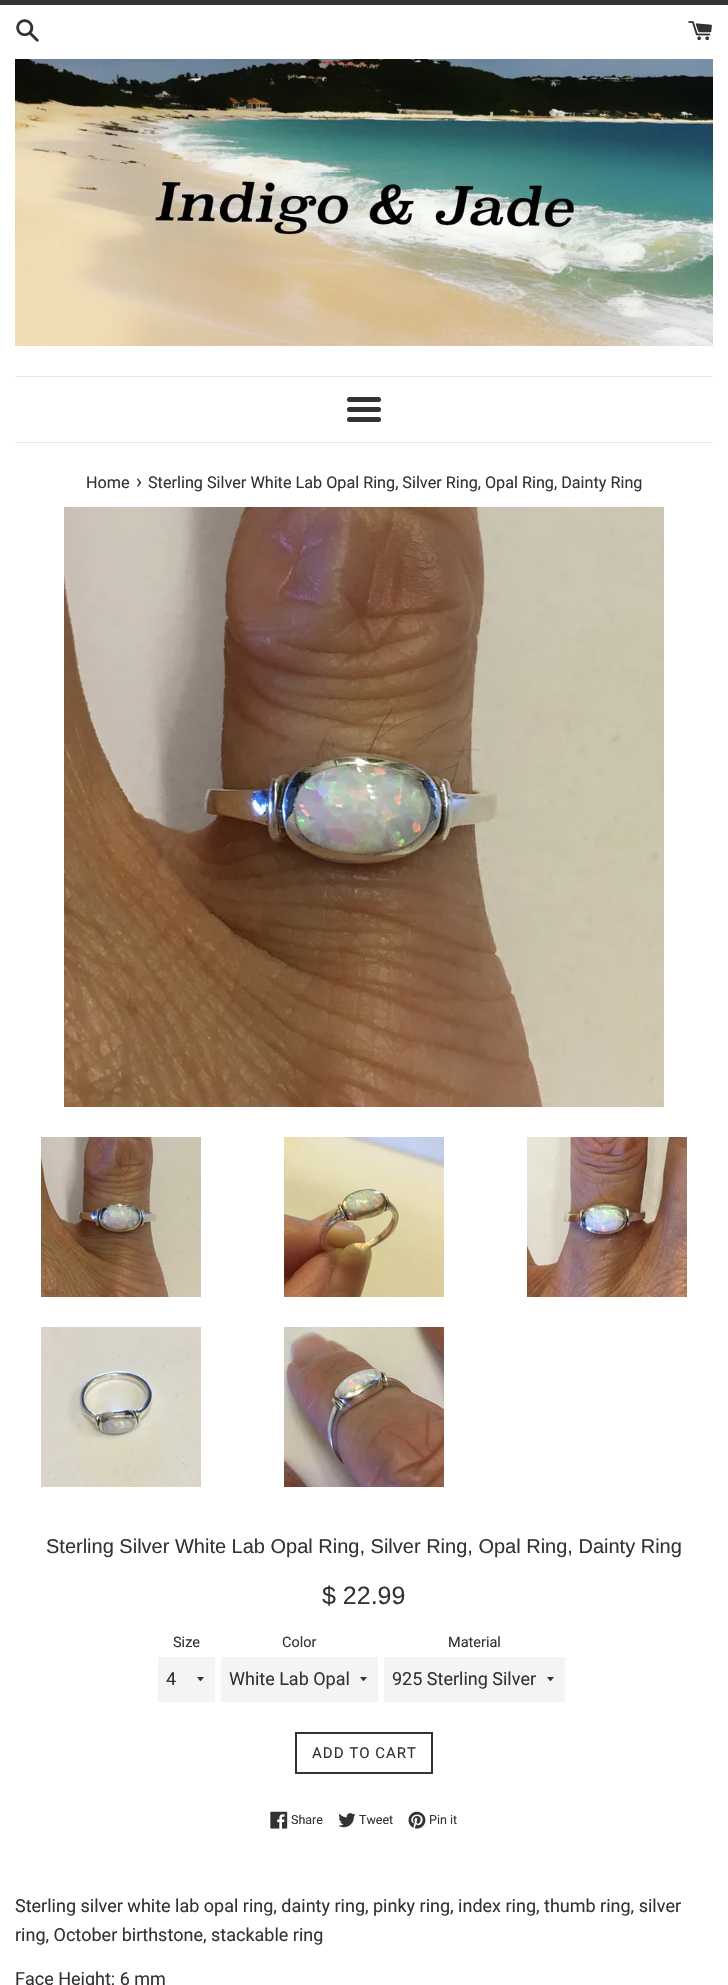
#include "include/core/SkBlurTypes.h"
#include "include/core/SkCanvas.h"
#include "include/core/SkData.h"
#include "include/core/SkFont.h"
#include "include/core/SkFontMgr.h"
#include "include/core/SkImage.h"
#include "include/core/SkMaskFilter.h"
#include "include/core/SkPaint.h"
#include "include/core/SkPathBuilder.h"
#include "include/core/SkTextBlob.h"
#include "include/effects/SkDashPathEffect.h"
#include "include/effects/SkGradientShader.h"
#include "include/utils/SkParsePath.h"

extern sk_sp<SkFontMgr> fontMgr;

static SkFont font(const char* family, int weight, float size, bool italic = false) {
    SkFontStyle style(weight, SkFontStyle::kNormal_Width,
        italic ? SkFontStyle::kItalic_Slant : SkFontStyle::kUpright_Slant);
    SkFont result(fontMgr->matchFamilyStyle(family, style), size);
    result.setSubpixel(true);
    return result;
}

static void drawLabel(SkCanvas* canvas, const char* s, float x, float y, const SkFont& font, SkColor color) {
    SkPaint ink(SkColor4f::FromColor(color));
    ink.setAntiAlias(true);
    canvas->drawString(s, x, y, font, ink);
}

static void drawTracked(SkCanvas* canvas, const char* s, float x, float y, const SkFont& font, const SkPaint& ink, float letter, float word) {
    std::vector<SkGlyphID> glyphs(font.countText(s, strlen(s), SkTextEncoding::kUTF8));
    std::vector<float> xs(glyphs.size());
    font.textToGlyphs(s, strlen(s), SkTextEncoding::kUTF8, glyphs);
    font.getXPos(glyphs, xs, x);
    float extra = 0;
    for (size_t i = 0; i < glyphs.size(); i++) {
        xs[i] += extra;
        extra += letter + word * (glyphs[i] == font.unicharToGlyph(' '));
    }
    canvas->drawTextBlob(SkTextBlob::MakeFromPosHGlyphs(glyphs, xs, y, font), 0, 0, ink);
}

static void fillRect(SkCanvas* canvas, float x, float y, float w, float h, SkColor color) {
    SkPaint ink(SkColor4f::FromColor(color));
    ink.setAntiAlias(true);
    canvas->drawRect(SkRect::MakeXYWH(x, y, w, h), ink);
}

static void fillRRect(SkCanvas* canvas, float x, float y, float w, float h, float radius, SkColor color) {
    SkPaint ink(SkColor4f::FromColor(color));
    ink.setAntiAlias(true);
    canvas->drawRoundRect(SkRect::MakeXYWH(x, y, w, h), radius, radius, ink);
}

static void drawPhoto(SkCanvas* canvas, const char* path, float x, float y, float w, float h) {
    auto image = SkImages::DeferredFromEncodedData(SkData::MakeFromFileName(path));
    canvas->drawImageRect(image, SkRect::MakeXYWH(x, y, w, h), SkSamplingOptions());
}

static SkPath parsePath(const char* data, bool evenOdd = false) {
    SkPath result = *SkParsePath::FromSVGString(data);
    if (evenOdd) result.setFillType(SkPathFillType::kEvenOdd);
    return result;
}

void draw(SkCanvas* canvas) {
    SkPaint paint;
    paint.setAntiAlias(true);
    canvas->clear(0xFFFFFFFF);
    fillRect(canvas, 0, 0, 728, 5, 0xFF333333);
    drawPhoto(canvas, "assets/img1.png", 16, 19, 23, 23);
    drawPhoto(canvas, "assets/img2.png", 688, 21, 24, 20);
    drawPhoto(canvas, "assets/img3.png", 15, 59, 698, 287);
    fillRect(canvas, 15, 376, 698, 1, 0xFFE8E8E8);
    fillRRect(canvas, 347, 397, 34, 5, 2.5f, 0xFF333333);
    fillRRect(canvas, 347, 407, 34, 5, 2.5f, 0xFF333333);
    fillRRect(canvas, 347, 417, 34, 5, 2.5f, 0xFF333333);
    fillRect(canvas, 15, 442, 698, 1, 0xFFE8E8E8);
    SkFont font1 = font("Roboto", 400, 16.2f);
    drawLabel(canvas, "Home", 86, 488, font1, 0xFF333333);
    SkFont font2 = font("Roboto", 400, 20);
    drawLabel(canvas, "›", 136, 488, font2, 0xFF333333);
    drawLabel(canvas, "Sterling Silver White Lab Opal Ring, Silver Ring, Opal Ring, Dainty Ring", 148, 488, font1, 0xFF333333);
    drawPhoto(canvas, "assets/img4.png", 64, 507, 600, 600);
    drawPhoto(canvas, "assets/img5.png", 41, 1137, 160, 160);
    drawPhoto(canvas, "assets/img6.png", 284, 1137, 160, 160);
    drawPhoto(canvas, "assets/img7.png", 527, 1137, 160, 160);
    drawPhoto(canvas, "assets/img8.png", 41, 1327, 160, 160);
    drawPhoto(canvas, "assets/img9.png", 284, 1327, 160, 160);
    SkFont font3 = font("Liberation Sans", 400, 20);
    drawLabel(canvas, "Sterling Silver White Lab Opal Ring, Silver Ring, Opal Ring, Dainty Ring", 46, 1553, font3, 0xFF333333);
    SkFont font4 = font("Liberation Sans", 400, 25);
    drawLabel(canvas, "$ 22.99", 322, 1604, font4, 0xFF333333);
    SkFont font5 = font("Roboto", 400, 14.5f);
    drawLabel(canvas, "Size", 173, 1647, font5, 0xFF333333);
    fillRect(canvas, 158, 1657, 57, 45, 0xFFF4F4F4);
    paint.setColor(0xFF333333);
    canvas->drawPath(parsePath("M197 1677C201.5 1682.5 199.5 1682.5 204 1677Z"), paint);
    SkFont font6 = font("Roboto", 400, 18);
    drawLabel(canvas, "4", 166, 1685, font6, 0xFF333333);
    drawLabel(canvas, "Color", 282, 1647, font5, 0xFF333333);
    fillRect(canvas, 221, 1657, 157, 45, 0xFFF4F4F4);
    canvas->drawPath(parsePath("M360 1677C364.5 1682.5 362.5 1682.5 367 1677Z"), paint);
    drawLabel(canvas, "White Lab Opal", 229, 1685, font6, 0xFF333333);
    drawLabel(canvas, "Material", 448, 1647, font5, 0xFF333333);
    fillRect(canvas, 384, 1657, 181, 45, 0xFFF4F4F4);
    canvas->drawPath(parsePath("M547 1677C551.5 1682.5 549.5 1682.5 554 1677Z"), paint);
    drawLabel(canvas, "925 Sterling Silver", 392, 1685, font6, 0xFF333333);
    paint.setStroke(true);
    paint.setStrokeWidth(2);
    canvas->drawRect(SkRect::MakeXYWH(296, 1733, 136, 40), paint);
    SkFont font7 = font("Roboto", 400, 15);
    paint.setStroke(false);
    drawTracked(canvas, "ADD TO CART", 312, 1758, font7, paint, 1, 0);
    drawPhoto(canvas, "assets/img10.png", 270, 1811, 18, 18);
    SkFont font8 = font("Roboto", 400, 12.5f);
    drawLabel(canvas, "Share", 291, 1824, font8, 0xFF333333);
    drawPhoto(canvas, "assets/img11.png", 338, 1813, 18, 15);
    drawLabel(canvas, "Tweet", 359, 1824, font8, 0xFF333333);
    drawPhoto(canvas, "assets/img12.png", 408, 1811, 18, 18);
    drawLabel(canvas, "Pin it", 429, 1824, font8, 0xFF333333);
    drawLabel(canvas, "Sterling silver white lab opal ring, dainty ring, pinky ring, index ring, thumb ring, silver", 15, 1912, font6, 0xFF333333);
    drawLabel(canvas, "ring, October birthstone, stackable ring", 15, 1941, font6, 0xFF333333);
    drawLabel(canvas, "Face Height: 6 mm", 15, 1985, font6, 0xFF333333);
}
